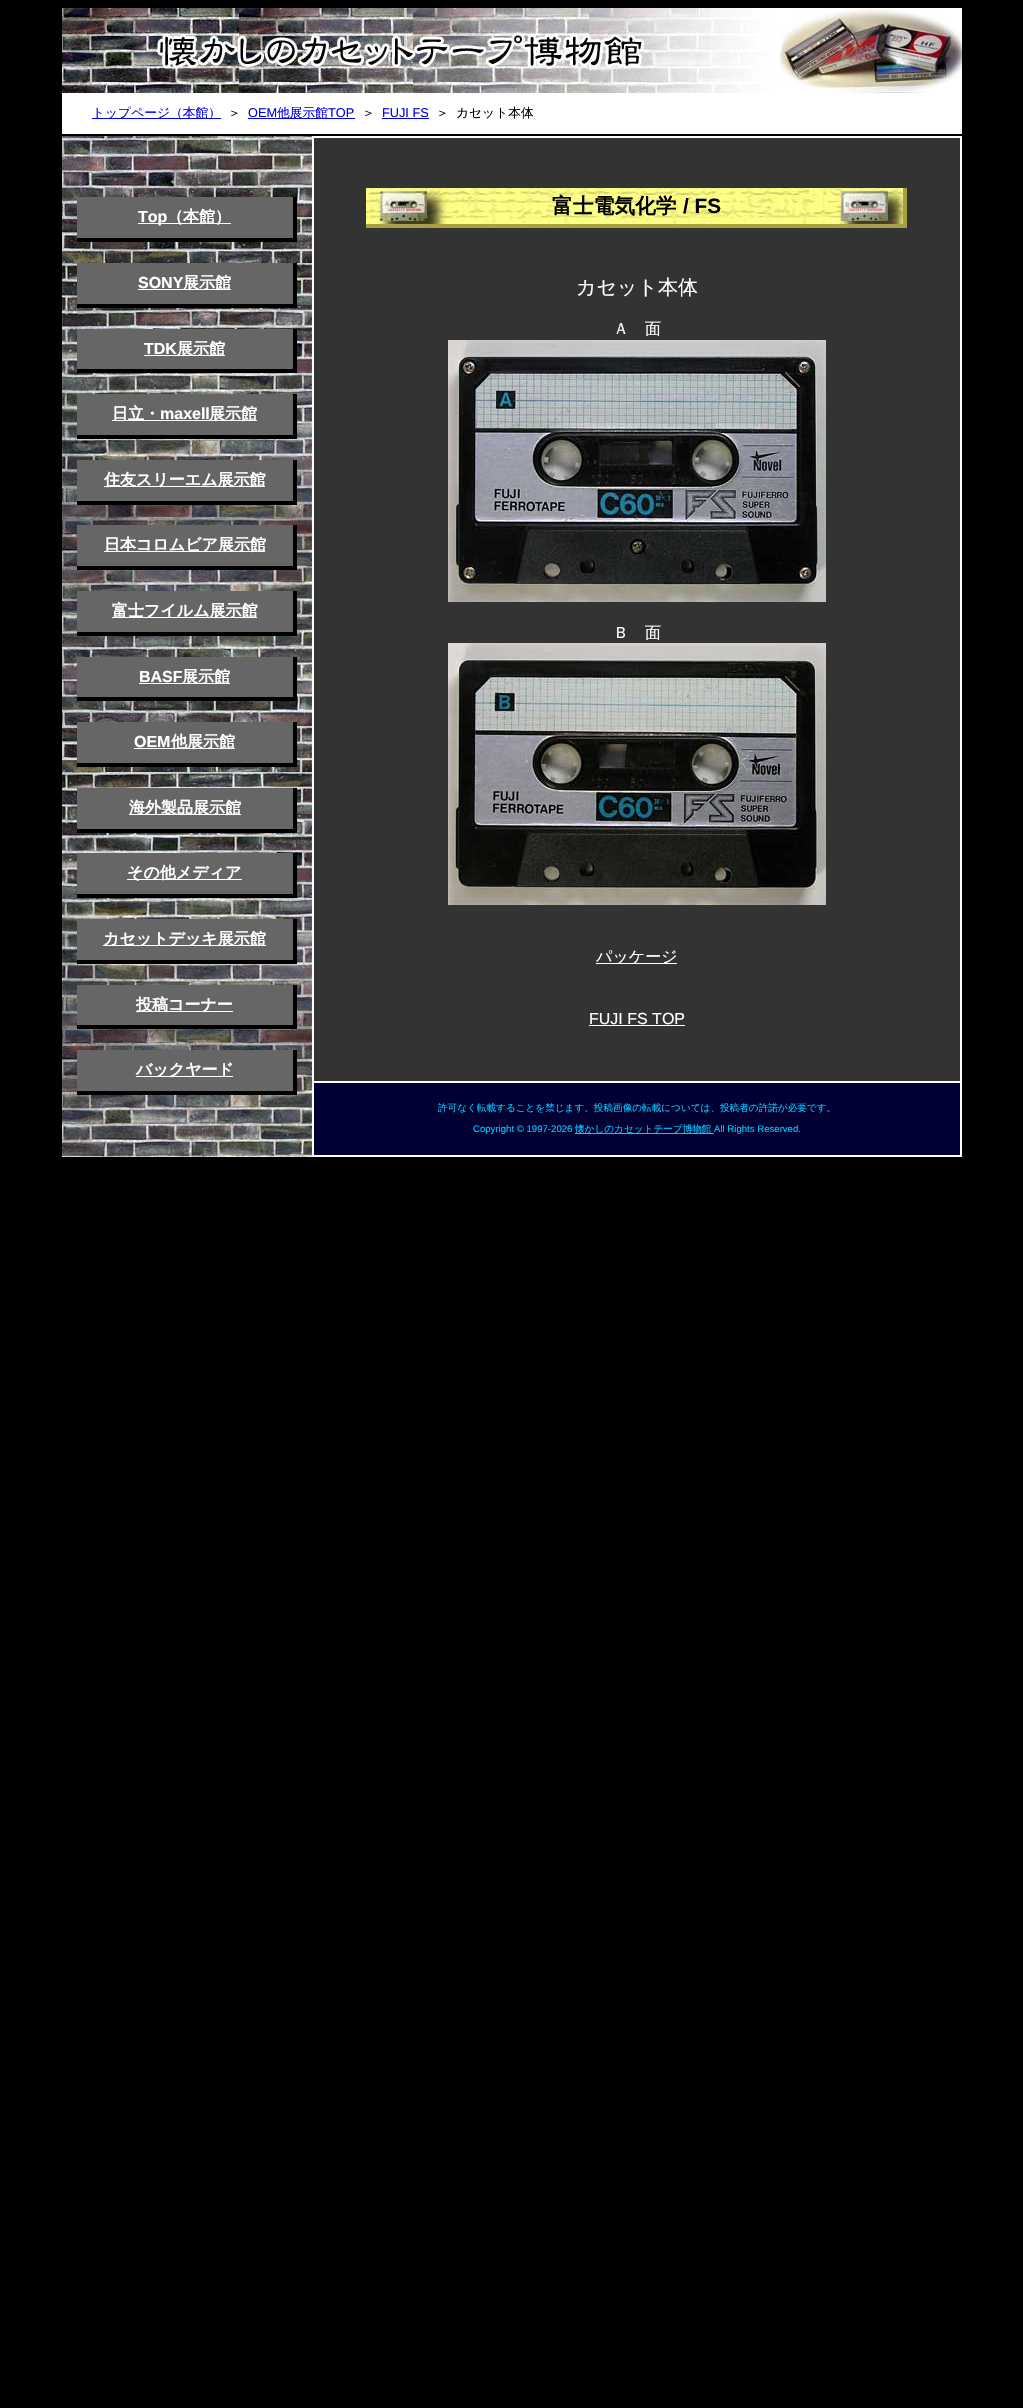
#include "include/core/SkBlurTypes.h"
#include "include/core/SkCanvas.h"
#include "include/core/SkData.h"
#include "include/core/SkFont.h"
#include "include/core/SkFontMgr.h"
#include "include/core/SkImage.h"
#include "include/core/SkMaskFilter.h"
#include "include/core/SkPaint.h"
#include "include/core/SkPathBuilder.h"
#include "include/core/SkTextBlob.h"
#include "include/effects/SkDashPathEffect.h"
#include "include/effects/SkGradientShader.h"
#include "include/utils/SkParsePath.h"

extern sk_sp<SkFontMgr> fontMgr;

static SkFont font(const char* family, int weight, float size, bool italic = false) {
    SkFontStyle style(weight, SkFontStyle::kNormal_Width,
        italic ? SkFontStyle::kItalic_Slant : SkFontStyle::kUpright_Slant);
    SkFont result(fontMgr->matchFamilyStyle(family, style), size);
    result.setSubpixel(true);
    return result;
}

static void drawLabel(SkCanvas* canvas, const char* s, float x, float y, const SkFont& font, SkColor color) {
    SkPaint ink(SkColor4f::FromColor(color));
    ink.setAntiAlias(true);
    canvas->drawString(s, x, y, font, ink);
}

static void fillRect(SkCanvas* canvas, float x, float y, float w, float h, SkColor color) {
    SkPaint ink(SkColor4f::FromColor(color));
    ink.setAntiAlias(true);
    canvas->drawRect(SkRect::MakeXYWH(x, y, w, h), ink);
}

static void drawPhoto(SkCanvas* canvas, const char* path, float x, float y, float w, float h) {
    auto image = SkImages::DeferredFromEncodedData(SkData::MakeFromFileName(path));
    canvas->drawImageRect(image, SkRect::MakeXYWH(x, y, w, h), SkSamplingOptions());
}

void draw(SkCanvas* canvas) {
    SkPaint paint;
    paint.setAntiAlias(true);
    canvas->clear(0xFF000000);
    drawPhoto(canvas, "assets/img1.png", 62, 136, 250, 1021);
    drawPhoto(canvas, "assets/img2.png", 62, 8, 900, 85);
    fillRect(canvas, 62, 93, 900, 41, 0xFFFFFFFF);
    fillRect(canvas, 92, 118, 129, 1, 0xFF0000EE);
    SkFont font1 = font("WenQuanYi Zen Hei", 500, 12.75f);
    drawLabel(canvas, "トップページ（本館）", 92, 117, font1, 0xFF0000EE);
    drawLabel(canvas, "＞", 228, 117, font1, 0xFF000000);
    SkFont font2 = font("Liberation Sans", 400, 12.75f);
    drawLabel(canvas, "OEM", 248, 117, font2, 0xFF0000EE);
    fillRect(canvas, 248, 118, 107, 1, 0xFF0000EE);
    drawLabel(canvas, "他展示館", 277, 117, font1, 0xFF0000EE);
    drawLabel(canvas, "TOP", 328, 117, font2, 0xFF0000EE);
    drawLabel(canvas, "＞", 362, 117, font1, 0xFF000000);
    drawLabel(canvas, "FUJI FS", 382, 117, font2, 0xFF0000EE);
    fillRect(canvas, 382, 118, 47, 1, 0xFF0000EE);
    drawLabel(canvas, "＞", 436, 117, font1, 0xFF000000);
    drawLabel(canvas, "カセット本体", 456, 117, font1, 0xFF000000);
    fillRect(canvas, 77, 197, 216, 41, 0xFF666666);
    fillRect(canvas, 293, 197, 4, 45, 0xFF000000);
    fillRect(canvas, 77, 238, 220, 4, 0xFF000000);
    fillRect(canvas, 138, 223, 93, 1, 0xFFFFFFFF);
    SkFont font3 = font("Liberation Sans", 700, 16);
    drawLabel(canvas, "Top", 138, 222, font3, 0xFFFFFFFF);
    SkFont font4 = font("WenQuanYi Zen Hei", 700, 16);
    drawLabel(canvas, "（本館）", 167, 222, font4, 0xFFFFFFFF);
    fillRect(canvas, 77, 263, 216, 41, 0xFF666666);
    fillRect(canvas, 293, 263, 4, 45, 0xFF000000);
    fillRect(canvas, 77, 304, 220, 4, 0xFF000000);
    drawLabel(canvas, "SONY", 138, 288, font3, 0xFFFFFFFF);
    fillRect(canvas, 138, 289, 93, 1, 0xFFFFFFFF);
    drawLabel(canvas, "展示館", 183, 288, font4, 0xFFFFFFFF);
    fillRect(canvas, 77, 329, 216, 40, 0xFF666666);
    fillRect(canvas, 293, 329, 4, 44, 0xFF000000);
    fillRect(canvas, 77, 369, 220, 4, 0xFF000000);
    drawLabel(canvas, "TDK", 144, 354, font3, 0xFFFFFFFF);
    fillRect(canvas, 144, 355, 81, 1, 0xFFFFFFFF);
    drawLabel(canvas, "展示館", 177, 354, font4, 0xFFFFFFFF);
    fillRect(canvas, 77, 394, 216, 41, 0xFF666666);
    fillRect(canvas, 293, 394, 4, 45, 0xFF000000);
    fillRect(canvas, 77, 435, 220, 4, 0xFF000000);
    fillRect(canvas, 112, 420, 145, 1, 0xFFFFFFFF);
    drawLabel(canvas, "日立・", 112, 419, font4, 0xFFFFFFFF);
    drawLabel(canvas, "maxell", 160, 419, font3, 0xFFFFFFFF);
    drawLabel(canvas, "展示館", 209, 419, font4, 0xFFFFFFFF);
    fillRect(canvas, 77, 460, 216, 41, 0xFF666666);
    fillRect(canvas, 293, 460, 4, 45, 0xFF000000);
    fillRect(canvas, 77, 501, 220, 4, 0xFF000000);
    fillRect(canvas, 104, 486, 161, 1, 0xFFFFFFFF);
    drawLabel(canvas, "住友スリーエム展示館", 104, 485, font4, 0xFFFFFFFF);
    fillRect(canvas, 77, 525, 216, 41, 0xFF666666);
    fillRect(canvas, 293, 525, 4, 45, 0xFF000000);
    fillRect(canvas, 77, 566, 220, 4, 0xFF000000);
    fillRect(canvas, 104, 551, 161, 1, 0xFFFFFFFF);
    drawLabel(canvas, "日本コロムビア展示館", 104, 550, font4, 0xFFFFFFFF);
    fillRect(canvas, 77, 591, 216, 41, 0xFF666666);
    fillRect(canvas, 293, 591, 4, 45, 0xFF000000);
    fillRect(canvas, 77, 632, 220, 4, 0xFF000000);
    fillRect(canvas, 112, 617, 145, 1, 0xFFFFFFFF);
    drawLabel(canvas, "富士フイルム展示館", 112, 616, font4, 0xFFFFFFFF);
    fillRect(canvas, 77, 657, 216, 40, 0xFF666666);
    fillRect(canvas, 293, 657, 4, 44, 0xFF000000);
    fillRect(canvas, 77, 697, 220, 4, 0xFF000000);
    drawLabel(canvas, "BASF", 139, 682, font3, 0xFFFFFFFF);
    fillRect(canvas, 139, 683, 91, 1, 0xFFFFFFFF);
    drawLabel(canvas, "展示館", 182, 682, font4, 0xFFFFFFFF);
    fillRect(canvas, 77, 722, 216, 41, 0xFF666666);
    fillRect(canvas, 293, 722, 4, 45, 0xFF000000);
    fillRect(canvas, 77, 763, 220, 4, 0xFF000000);
    drawLabel(canvas, "OEM", 134, 747, font3, 0xFFFFFFFF);
    fillRect(canvas, 134, 748, 101, 1, 0xFFFFFFFF);
    drawLabel(canvas, "他展示館", 171, 747, font4, 0xFFFFFFFF);
    fillRect(canvas, 77, 788, 216, 41, 0xFF666666);
    fillRect(canvas, 293, 788, 4, 45, 0xFF000000);
    fillRect(canvas, 77, 829, 220, 4, 0xFF000000);
    fillRect(canvas, 129, 814, 112, 1, 0xFFFFFFFF);
    drawLabel(canvas, "海外製品展示館", 129, 813, font4, 0xFFFFFFFF);
    fillRect(canvas, 77, 853, 216, 41, 0xFF666666);
    fillRect(canvas, 293, 853, 4, 45, 0xFF000000);
    fillRect(canvas, 77, 894, 220, 4, 0xFF000000);
    fillRect(canvas, 127, 879, 115, 1, 0xFFFFFFFF);
    drawLabel(canvas, "その他メディア", 127, 878, font4, 0xFFFFFFFF);
    fillRect(canvas, 77, 919, 216, 41, 0xFF666666);
    fillRect(canvas, 293, 919, 4, 45, 0xFF000000);
    fillRect(canvas, 77, 960, 220, 4, 0xFF000000);
    fillRect(canvas, 103, 945, 163, 1, 0xFFFFFFFF);
    drawLabel(canvas, "カセットデッキ展示館", 103, 944, font4, 0xFFFFFFFF);
    fillRect(canvas, 77, 985, 216, 40, 0xFF666666);
    fillRect(canvas, 293, 985, 4, 44, 0xFF000000);
    fillRect(canvas, 77, 1025, 220, 4, 0xFF000000);
    fillRect(canvas, 136, 1011, 97, 1, 0xFFFFFFFF);
    drawLabel(canvas, "投稿コーナー", 136, 1010, font4, 0xFFFFFFFF);
    fillRect(canvas, 77, 1050, 216, 41, 0xFF666666);
    fillRect(canvas, 293, 1050, 4, 45, 0xFF000000);
    fillRect(canvas, 77, 1091, 220, 4, 0xFF000000);
    fillRect(canvas, 136, 1076, 97, 1, 0xFFFFFFFF);
    drawLabel(canvas, "バックヤード", 136, 1075, font4, 0xFFFFFFFF);
    fillRect(canvas, 314, 138, 646, 943, 0xFF333333);
    paint.setStroke(true);
    paint.setStrokeWidth(2);
    paint.setColor(0xFFFFFFFF);
    canvas->drawRect(SkRect::MakeXYWH(313, 137, 648, 1019), paint);
    fillRect(canvas, 314, 1081, 646, 2, 0xFFFFFFFF);
    drawPhoto(canvas, "assets/img3.png", 366, 188, 541, 40);
    SkFont font5 = font("WenQuanYi Zen Hei", 700, 20.75f);
    drawLabel(canvas, "富士電気化学", 552, 213, font5, 0xFF000000);
    SkFont font6 = font("Liberation Sans", 700, 20.75f);
    drawLabel(canvas, "/ FS", 683, 213, font6, 0xFF000000);
    SkFont font7 = font("WenQuanYi Zen Hei", 500, 20);
    drawLabel(canvas, "カセット本体", 576, 294, font7, 0xFFFFFFFF);
    SkFont font8 = font("WenQuanYi Zen Hei", 500, 16);
    drawLabel(canvas, "Ａ　面", 613, 334, font8, 0xFFFFFFFF);
    drawPhoto(canvas, "assets/img4.png", 448, 340, 378, 262);
    drawLabel(canvas, "Ｂ　面", 613, 638, font8, 0xFFFFFFFF);
    drawPhoto(canvas, "assets/img5.png", 448, 643, 378, 262);
    fillRect(canvas, 596, 963, 81, 1, 0xFFFFFFFF);
    drawLabel(canvas, "パッケージ", 596, 962, font8, 0xFFFFFFFF);
    SkFont font9 = font("Liberation Sans", 400, 16);
    drawLabel(canvas, "FUJI FS TOP", 589, 1024, font9, 0xFFFFFFFF);
    fillRect(canvas, 589, 1025, 96, 1, 0xFFFFFFFF);
    fillRect(canvas, 314, 1083, 646, 72, 0xFF000033);
    SkFont font10 = font("WenQuanYi Zen Hei", 500, 9.6f);
    drawLabel(canvas, "許可なく転載することを禁じます。投稿画像の転載については、投稿者の許諾が必要です。", 438, 1111, font10, 0xFF00CCFF);
    SkFont font11 = font("Liberation Sans", 400, 9.6f);
    drawLabel(canvas, "Copyright © 1997-2026", 473, 1132, font11, 0xFF00CCFF);
    fillRect(canvas, 575, 1133, 139, 1, 0xFF00CCFF);
    drawLabel(canvas, "懐かしのカセットテープ博物館", 575, 1132, font10, 0xFF00CCFF);
    drawLabel(canvas, "All Rights Reserved.", 714, 1132, font11, 0xFF00CCFF);
}
